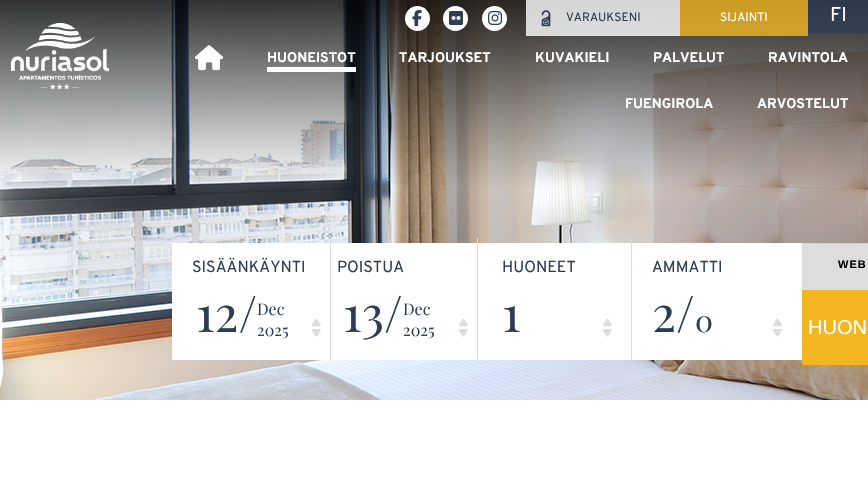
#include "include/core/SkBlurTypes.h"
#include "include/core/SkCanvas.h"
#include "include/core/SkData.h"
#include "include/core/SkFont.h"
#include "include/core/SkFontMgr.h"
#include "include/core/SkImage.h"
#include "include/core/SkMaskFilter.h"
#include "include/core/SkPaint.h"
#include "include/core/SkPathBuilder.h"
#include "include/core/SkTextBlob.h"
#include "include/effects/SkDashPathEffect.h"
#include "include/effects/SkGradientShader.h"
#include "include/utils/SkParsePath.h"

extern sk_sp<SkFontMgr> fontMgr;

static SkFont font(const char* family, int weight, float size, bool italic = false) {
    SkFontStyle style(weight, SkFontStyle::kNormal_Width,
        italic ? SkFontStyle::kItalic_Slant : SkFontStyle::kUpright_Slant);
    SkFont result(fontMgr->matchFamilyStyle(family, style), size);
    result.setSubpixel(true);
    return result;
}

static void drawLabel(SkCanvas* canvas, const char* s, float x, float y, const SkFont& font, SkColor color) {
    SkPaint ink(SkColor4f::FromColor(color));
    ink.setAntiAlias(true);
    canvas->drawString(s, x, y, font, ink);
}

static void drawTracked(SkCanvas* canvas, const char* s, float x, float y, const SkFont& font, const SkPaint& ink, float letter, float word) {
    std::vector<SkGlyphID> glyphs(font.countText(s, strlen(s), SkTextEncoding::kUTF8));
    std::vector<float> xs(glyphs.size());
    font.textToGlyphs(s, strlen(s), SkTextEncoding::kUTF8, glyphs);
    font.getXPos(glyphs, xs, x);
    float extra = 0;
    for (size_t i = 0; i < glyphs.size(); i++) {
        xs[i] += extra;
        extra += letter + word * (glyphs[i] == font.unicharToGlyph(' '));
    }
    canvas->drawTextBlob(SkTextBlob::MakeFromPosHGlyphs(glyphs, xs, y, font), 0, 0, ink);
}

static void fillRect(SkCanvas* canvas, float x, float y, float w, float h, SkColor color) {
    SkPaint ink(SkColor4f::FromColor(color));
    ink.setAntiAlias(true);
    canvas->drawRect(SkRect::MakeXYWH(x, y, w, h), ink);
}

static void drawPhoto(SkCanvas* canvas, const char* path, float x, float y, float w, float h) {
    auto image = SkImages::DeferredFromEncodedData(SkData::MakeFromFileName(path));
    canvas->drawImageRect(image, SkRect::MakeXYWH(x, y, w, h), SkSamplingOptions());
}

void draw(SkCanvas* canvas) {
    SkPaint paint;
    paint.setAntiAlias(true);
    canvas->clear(0xFFFFFFFF);
    drawPhoto(canvas, "assets/img7.png", 0, 0, 868, 400);
    paint.setColor(0xFFFFFFFF);
    canvas->drawCircle(417.5f, 18.5f, 12.5f, paint);
    drawPhoto(canvas, "assets/img1.png", 412, 10, 10, 16);
    canvas->drawCircle(455.5f, 18.5f, 12.5f, paint);
    drawPhoto(canvas, "assets/img2.png", 449, 11, 14, 14);
    canvas->drawCircle(494.5f, 18.5f, 12.5f, paint);
    drawPhoto(canvas, "assets/img3.png", 488, 11, 14, 14);
    fillRect(canvas, 526, 0, 154, 36, 0xCCFFFFFF);
    drawPhoto(canvas, "assets/img4.png", 541, 10, 10, 17);
    SkFont font1 = font("Overpass", 400, 12);
    drawLabel(canvas, "VARAUKSENI", 566, 21, font1, 0xFF2D3D54);
    fillRect(canvas, 680, 0, 128, 36, 0xCCF3B620);
    drawLabel(canvas, "SIJAINTI", 720, 21, font1, 0xFFFFFFFF);
    fillRect(canvas, 808, 0, 60, 33, 0xCC2D3D54);
    SkFont font2 = font("Overpass", 400, 20);
    drawLabel(canvas, "FI", 830, 21, font2, 0xFFFFFFFF);
    drawPhoto(canvas, "assets/img5.png", 11, 23, 98, 67);
    drawPhoto(canvas, "assets/img6.png", 195, 45, 29, 26);
    SkFont font3 = font("Overpass", 700, 14);
    drawLabel(canvas, "HUONEISTOT", 267, 62, font3, 0xFFFFFFFF);
    fillRect(canvas, 267, 67, 89, 5, 0xFFFFFFFF);
    drawLabel(canvas, "TARJOUKSET", 399, 62, font3, 0xFFFFFFFF);
    drawLabel(canvas, "KUVAKIELI", 535, 62, font3, 0xFFFFFFFF);
    drawLabel(canvas, "PALVELUT", 653, 62, font3, 0xFFFFFFFF);
    drawLabel(canvas, "RAVINTOLA", 768, 62, font3, 0xFFFFFFFF);
    drawLabel(canvas, "FUENGIROLA", 625, 108, font3, 0xFFFFFFFF);
    drawLabel(canvas, "ARVOSTELUT", 757, 108, font3, 0xFFFFFFFF);
    fillRect(canvas, 172, 243, 459, 117, 0xFFFFFFFF);
    SkFont font4 = font("Overpass", 400, 16);
    drawLabel(canvas, "SISÄÄNKÄYNTI", 192, 272, font4, 0xFF2D3D54);
    drawLabel(canvas, "POISTUA", 337, 272, font4, 0xFF2D3D54);
    SkFont font5 = font("Playfair Display", 400, 50);
    drawLabel(canvas, "12/", 196, 332, font5, 0xFF2D3D54);
    SkFont font6 = font("Playfair Display", 400, 16);
    drawLabel(canvas, "Dec", 257, 315, font6, 0xFF2D3D54);
    fillRect(canvas, 330, 238, 1, 122, 0xFFDDDDDD);
    drawLabel(canvas, "2025", 257, 336, font6, 0xFF2D3D54);
    drawPhoto(canvas, "assets/img8.png", 312, 318, 9, 19);
    drawLabel(canvas, "13/", 343, 332, font5, 0xFF2D3D54);
    drawLabel(canvas, "Dec", 403, 315, font6, 0xFF2D3D54);
    fillRect(canvas, 477, 238, 1, 122, 0xFFDDDDDD);
    drawLabel(canvas, "2025", 403, 336, font6, 0xFF2D3D54);
    drawPhoto(canvas, "assets/img8.png", 459, 318, 9, 19);
    drawLabel(canvas, "HUONEET", 502, 272, font4, 0xFF2D3D54);
    drawLabel(canvas, "1", 502, 332, font5, 0xFF2D3D54);
    drawPhoto(canvas, "assets/img8.png", 603, 318, 9, 19);
    fillRect(canvas, 631, 238, 1, 122, 0xFFDDDDDD);
    fillRect(canvas, 632, 243, 170, 117, 0xFFFFFFFF);
    drawLabel(canvas, "AMMATTI", 652, 272, font4, 0xFF2D3D54);
    drawLabel(canvas, "2/", 652, 332, font5, 0xFF2D3D54);
    SkFont font7 = font("Playfair Display", 400, 30);
    drawLabel(canvas, "0", 695, 332, font7, 0xFF2D3D54);
    drawPhoto(canvas, "assets/img8.png", 773, 318, 9, 19);
    fillRect(canvas, 802, 244, 66, 46, 0xFFDDDDDD);
    fillRect(canvas, 802, 243, 66, 1, 0xFFD3D3D3);
    SkFont font8 = font("Liberation Sans", 700, 11);
    paint.setColor(0xFF000000);
    drawTracked(canvas, "WEB", 838, 268, font8, paint, 1, 0);
    fillRect(canvas, 802, 290, 66, 75, 0xFFF3B620);
    SkFont font9 = font("Liberation Sans", 400, 20);
    drawLabel(canvas, "HUON", 808, 334, font9, 0xFFFFFFFF);
}
